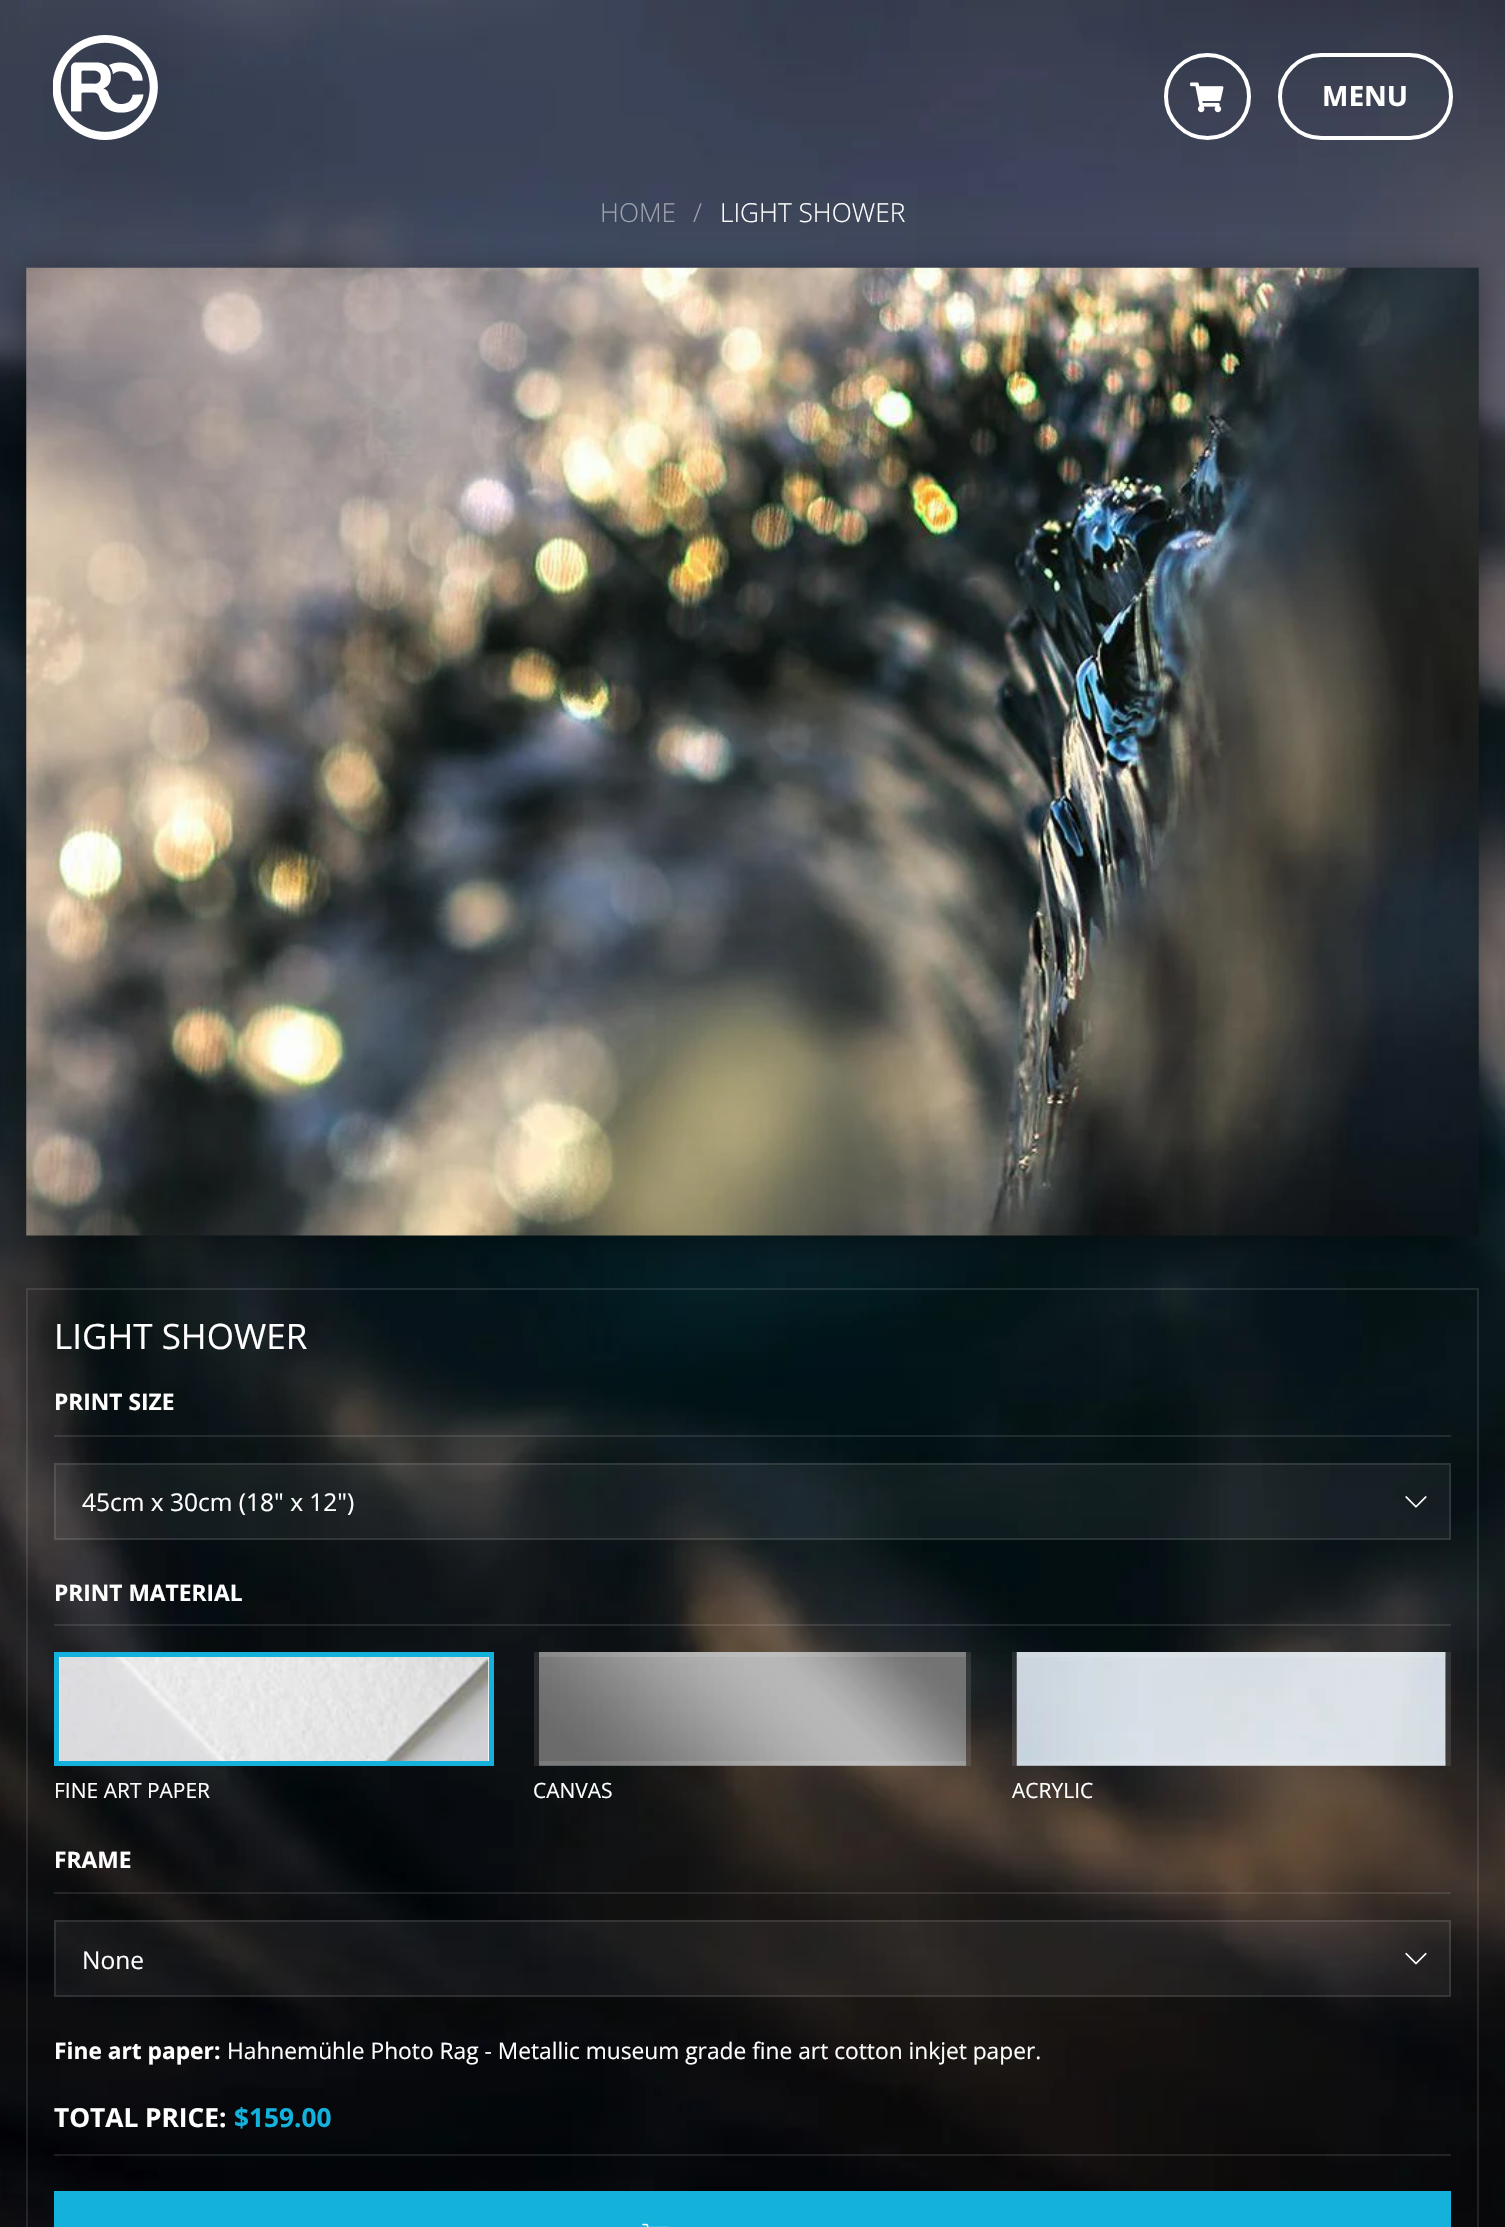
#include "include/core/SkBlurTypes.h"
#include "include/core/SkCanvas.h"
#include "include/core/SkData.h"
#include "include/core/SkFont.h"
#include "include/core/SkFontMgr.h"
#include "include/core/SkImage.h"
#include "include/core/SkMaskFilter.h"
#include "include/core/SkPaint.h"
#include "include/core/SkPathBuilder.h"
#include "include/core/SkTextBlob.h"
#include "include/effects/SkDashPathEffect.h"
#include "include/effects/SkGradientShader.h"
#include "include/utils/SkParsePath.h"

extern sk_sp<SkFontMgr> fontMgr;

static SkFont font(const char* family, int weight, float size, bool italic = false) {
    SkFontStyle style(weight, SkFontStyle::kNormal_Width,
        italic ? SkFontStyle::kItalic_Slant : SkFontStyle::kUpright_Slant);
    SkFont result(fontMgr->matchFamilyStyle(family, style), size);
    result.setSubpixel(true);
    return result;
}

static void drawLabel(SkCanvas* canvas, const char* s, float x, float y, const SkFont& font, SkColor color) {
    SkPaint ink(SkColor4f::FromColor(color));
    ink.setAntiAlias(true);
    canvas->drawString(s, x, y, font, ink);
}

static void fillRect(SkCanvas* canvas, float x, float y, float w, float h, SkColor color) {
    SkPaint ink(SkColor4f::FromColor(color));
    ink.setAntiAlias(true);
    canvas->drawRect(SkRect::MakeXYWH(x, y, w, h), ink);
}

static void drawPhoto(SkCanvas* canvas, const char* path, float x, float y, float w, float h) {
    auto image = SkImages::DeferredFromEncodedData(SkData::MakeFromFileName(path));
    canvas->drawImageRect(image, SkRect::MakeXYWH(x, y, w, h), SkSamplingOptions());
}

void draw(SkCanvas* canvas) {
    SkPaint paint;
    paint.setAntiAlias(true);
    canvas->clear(0xFFFFFFFF);
    drawPhoto(canvas, "assets/img1.png", 0, 0, 1505, 2227);
    drawPhoto(canvas, "assets/img2.png", 53, 35, 105, 105);
    paint.setStroke(true);
    paint.setStrokeWidth(4);
    paint.setColor(0xFFFFFFFF);
    canvas->drawCircle(1207.5f, 96.5f, 41.5f, paint);
    drawPhoto(canvas, "assets/img3.png", 1190, 82, 34, 31);
    canvas->drawRoundRect(SkRect::MakeXYWH(1280, 55, 171, 83), 41.5f, 41.5f, paint);
    SkFont font1 = font("Open Sans", 700, 28);
    drawLabel(canvas, "MENU", 1322, 106, font1, 0xFFFFFFFF);
    SkFont font2 = font("Open Sans", 300, 26.25f);
    drawLabel(canvas, "HOME", 600, 222, font2, 0xFF9DA2AD);
    drawLabel(canvas, "/", 693, 222, font2, 0xFF9DA2AD);
    drawLabel(canvas, "LIGHT SHOWER", 720, 222, font2, 0xFFFFFFFF);
    paint.setStroke(false);
    paint.setColor(0x66000000);
    paint.setMaskFilter(SkMaskFilter::MakeBlur(kNormal_SkBlurStyle, 16));
    canvas->drawRect(SkRect::MakeXYWH(26, 273, 1453, 968), paint);
    paint.setMaskFilter(nullptr);
    drawPhoto(canvas, "assets/img4.png", 26, 267, 1453, 969);
    paint.setStroke(true);
    paint.setStrokeWidth(2);
    paint.setColor(0x1AFFFFFF);
    canvas->drawRect(SkRect::MakeXYWH(27, 1289, 1451, 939), paint);
    SkFont font3 = font("Open Sans", 400, 35);
    drawLabel(canvas, "LIGHT SHOWER", 54, 1349, font3, 0xFFFFFFFF);
    SkFont font4 = font("Open Sans", 700, 22.75f);
    drawLabel(canvas, "PRINT SIZE", 54, 1410, font4, 0xFFFFFFFF);
    fillRect(canvas, 54, 1435, 1397, 2, 0x1AFFFFFF);
    fillRect(canvas, 54, 1463, 1397, 77, 0x0DFFFFFF);
    canvas->drawRect(SkRect::MakeXYWH(55, 1464, 1395, 75), paint);
    SkFont font5 = font("Open Sans", 400, 24.5f);
    drawLabel(canvas, "45cm x 30cm (18\" x 12\")", 82, 1511, font5, 0xFFFFFFFF);
    drawPhoto(canvas, "assets/img5.png", 1405, 1496, 22, 12);
    drawLabel(canvas, "PRINT MATERIAL", 54, 1601, font4, 0xFFFFFFFF);
    fillRect(canvas, 54, 1624, 1397, 2, 0x1AFFFFFF);
    fillRect(canvas, 59, 1657, 430, 104, 0xFFFFFFFF);
    drawPhoto(canvas, "assets/img6.png", 59, 1657, 430, 104);
    paint.setStrokeWidth(5);
    paint.setColor(0xFF13B1DC);
    canvas->drawRect(SkRect::MakeXYWH(56.5f, 1654.5f, 435, 109), paint);
    SkFont font6 = font("Open Sans", 400, 21);
    drawLabel(canvas, "FINE ART PAPER", 54, 1798, font6, 0xFFFFFFFF);
    drawPhoto(canvas, "assets/img7.png", 539, 1652, 427, 114);
    paint.setColor(0x1AFFFFFF);
    canvas->drawRect(SkRect::MakeXYWH(536.5f, 1654.5f, 432, 109), paint);
    drawLabel(canvas, "CANVAS", 533, 1798, font6, 0xFFFFFFFF);
    drawPhoto(canvas, "assets/img8.png", 1016, 1652, 430, 114);
    canvas->drawRect(SkRect::MakeXYWH(1014.5f, 1654.5f, 434, 109), paint);
    drawLabel(canvas, "ACRYLIC", 1012, 1798, font6, 0xFFFFFFFF);
    drawLabel(canvas, "FRAME", 54, 1868, font4, 0xFFFFFFFF);
    fillRect(canvas, 54, 1892, 1397, 2, 0x1AFFFFFF);
    fillRect(canvas, 54, 1920, 1397, 77, 0x0DFFFFFF);
    paint.setStrokeWidth(2);
    canvas->drawRect(SkRect::MakeXYWH(55, 1921, 1395, 75), paint);
    drawLabel(canvas, "None", 82, 1969, font5, 0xFFFFFFFF);
    drawPhoto(canvas, "assets/img9.png", 1405, 1952, 22, 13);
    drawLabel(canvas, "Fine art paper:", 54, 2059, font4, 0xFFFFFFFF);
    SkFont font7 = font("Open Sans", 400, 22.75f);
    drawLabel(canvas, "Hahnemühle Photo Rag - Metallic museum grade fine art cotton inkjet paper.", 227, 2059, font7, 0xFFFFFFFF);
    SkFont font8 = font("Open Sans", 700, 26.25f);
    drawLabel(canvas, "TOTAL PRICE:", 54, 2127, font8, 0xFFFFFFFF);
    drawLabel(canvas, "$159.00", 234, 2127, font8, 0xFF13B1DC);
    fillRect(canvas, 54, 2154, 1397, 2, 0x1AFFFFFF);
    fillRect(canvas, 54, 2191, 1397, 36, 0xFF13B1DC);
    drawPhoto(canvas, "assets/img10.png", 642, 2223, 27, 4);
}
